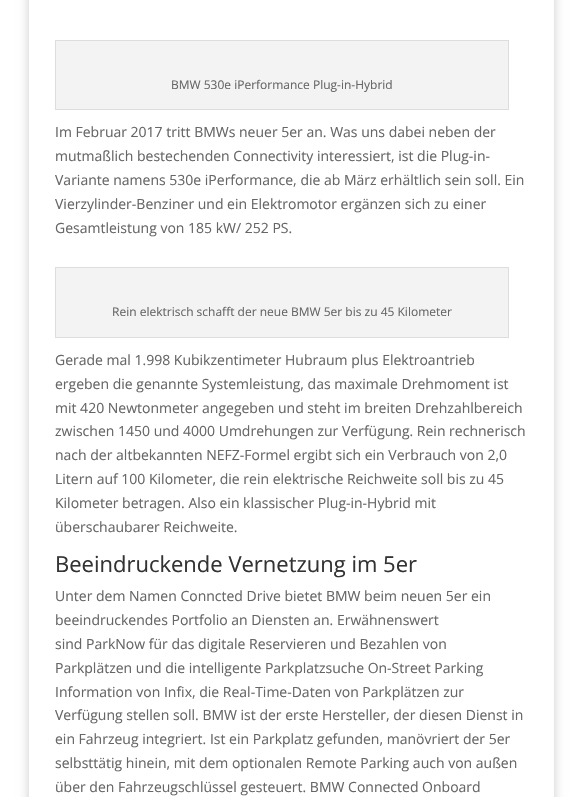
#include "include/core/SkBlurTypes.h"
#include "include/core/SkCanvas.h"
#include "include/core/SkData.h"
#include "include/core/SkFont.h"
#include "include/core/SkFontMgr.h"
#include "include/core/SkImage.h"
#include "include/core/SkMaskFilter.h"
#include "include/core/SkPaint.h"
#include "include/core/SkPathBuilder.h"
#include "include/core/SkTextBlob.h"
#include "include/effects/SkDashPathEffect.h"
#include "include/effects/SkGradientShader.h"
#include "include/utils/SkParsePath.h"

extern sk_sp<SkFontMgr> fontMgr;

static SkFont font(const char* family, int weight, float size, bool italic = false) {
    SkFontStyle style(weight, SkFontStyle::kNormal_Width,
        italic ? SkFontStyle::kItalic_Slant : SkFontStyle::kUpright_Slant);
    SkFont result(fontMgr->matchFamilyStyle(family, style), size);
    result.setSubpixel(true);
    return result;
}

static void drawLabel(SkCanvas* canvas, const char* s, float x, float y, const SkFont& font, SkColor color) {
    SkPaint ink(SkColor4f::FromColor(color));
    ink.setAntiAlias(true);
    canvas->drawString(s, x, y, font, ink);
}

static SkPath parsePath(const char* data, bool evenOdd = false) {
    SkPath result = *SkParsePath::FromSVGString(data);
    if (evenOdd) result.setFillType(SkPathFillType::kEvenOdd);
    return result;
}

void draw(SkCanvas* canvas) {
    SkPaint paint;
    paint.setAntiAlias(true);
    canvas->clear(0xFFFFFFFF);
    canvas->save();
    canvas->clipPath(parsePath("M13 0H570V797H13ZM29-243H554V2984H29Z", true), true);
    paint.setColor(0x33000000);
    paint.setMaskFilter(SkMaskFilter::MakeBlur(kNormal_SkBlurStyle, 5));
    canvas->drawRect(SkRect::MakeXYWH(29, -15, 525, 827), paint);
    paint.setMaskFilter(nullptr);
    canvas->restore();
    paint.setColor(0xFFF3F3F3);
    canvas->drawRect(SkRect::MakeXYWH(55.5f, 40.5f, 453, 69), paint);
    paint.setStroke(true);
    paint.setStrokeWidth(1);
    paint.setColor(0xFFDDDDDD);
    canvas->drawRect(SkRect::MakeXYWH(55.5f, 40.5f, 453, 69), paint);
    SkFont font1 = font("Open Sans", 400, 12);
    drawLabel(canvas, "BMW 530e iPerformance Plug-in-Hybrid", 171, 89, font1, 0xFF666666);
    SkFont font2 = font("Open Sans", 400, 14);
    drawLabel(canvas, "Im Februar 2017 tritt BMWs neuer 5er an. Was uns dabei neben der", 55, 137, font2, 0xFF666666);
    drawLabel(canvas, "mutmaßlich bestechenden Connectivity interessiert, ist die Plug-in-", 55, 161, font2, 0xFF666666);
    drawLabel(canvas, "Variante namens 530e iPerformance, die ab März erhältlich sein soll. Ein", 55, 185, font2, 0xFF666666);
    drawLabel(canvas, "Vierzylinder-Benziner und ein Elektromotor ergänzen sich zu einer", 55, 209, font2, 0xFF666666);
    drawLabel(canvas, "Gesamtleistung von 185 kW/ 252 PS.", 55, 233, font2, 0xFF666666);
    paint.setStroke(false);
    paint.setColor(0xFFF3F3F3);
    canvas->drawRect(SkRect::MakeXYWH(55.5f, 267.5f, 453, 70), paint);
    paint.setStroke(true);
    paint.setColor(0xFFDDDDDD);
    canvas->drawRect(SkRect::MakeXYWH(55.5f, 267.5f, 453, 70), paint);
    drawLabel(canvas, "Rein elektrisch schafft der neue BMW 5er bis zu 45 Kilometer", 112, 316, font1, 0xFF666666);
    drawLabel(canvas, "Gerade mal 1.998 Kubikzentimeter Hubraum plus Elektroantrieb", 55, 365, font2, 0xFF666666);
    drawLabel(canvas, "ergeben die genannte Systemleistung, das maximale Drehmoment ist", 55, 389, font2, 0xFF666666);
    drawLabel(canvas, "mit 420 Newtonmeter angegeben und steht im breiten Drehzahlbereich", 55, 413, font2, 0xFF666666);
    drawLabel(canvas, "zwischen 1450 und 4000 Umdrehungen zur Verfügung. Rein rechnerisch", 55, 436, font2, 0xFF666666);
    drawLabel(canvas, "nach der altbekannten NEFZ-Formel ergibt sich ein Verbrauch von 2,0", 55, 460, font2, 0xFF666666);
    drawLabel(canvas, "Litern auf 100 Kilometer, die rein elektrische Reichweite soll bis zu 45", 55, 484, font2, 0xFF666666);
    drawLabel(canvas, "Kilometer betragen. Also ein klassischer Plug-in-Hybrid mit", 55, 508, font2, 0xFF666666);
    drawLabel(canvas, "überschaubarer Reichweite.", 55, 532, font2, 0xFF666666);
    SkFont font3 = font("Open Sans", 400, 22);
    drawLabel(canvas, "Beeindruckende Vernetzung im 5er", 55, 572, font3, 0xFF333333);
    drawLabel(canvas, "Unter dem Namen Conncted Drive bietet BMW beim neuen 5er ein", 55, 601, font2, 0xFF666666);
    drawLabel(canvas, "beeindruckendes Portfolio an Diensten an. Erwähnenswert", 55, 625, font2, 0xFF666666);
    drawLabel(canvas, "sind ParkNow für das digitale Reservieren und Bezahlen von", 55, 649, font2, 0xFF666666);
    drawLabel(canvas, "Parkplätzen und die intelligente Parkplatzsuche On-Street Parking", 55, 673, font2, 0xFF666666);
    drawLabel(canvas, "Information von Infix, die Real-Time-Daten von Parkplätzen zur", 55, 697, font2, 0xFF666666);
    drawLabel(canvas, "Verfügung stellen soll. BMW ist der erste Hersteller, der diesen Dienst in", 55, 720, font2, 0xFF666666);
    drawLabel(canvas, "ein Fahrzeug integriert. Ist ein Parkplatz gefunden, manövriert der 5er", 55, 744, font2, 0xFF666666);
    drawLabel(canvas, "selbsttätig hinein, mit dem optionalen Remote Parking auch von außen", 55, 768, font2, 0xFF666666);
    drawLabel(canvas, "über den Fahrzeugschlüssel gesteuert. BMW Connected Onboard", 55, 792, font2, 0xFF666666);
}
